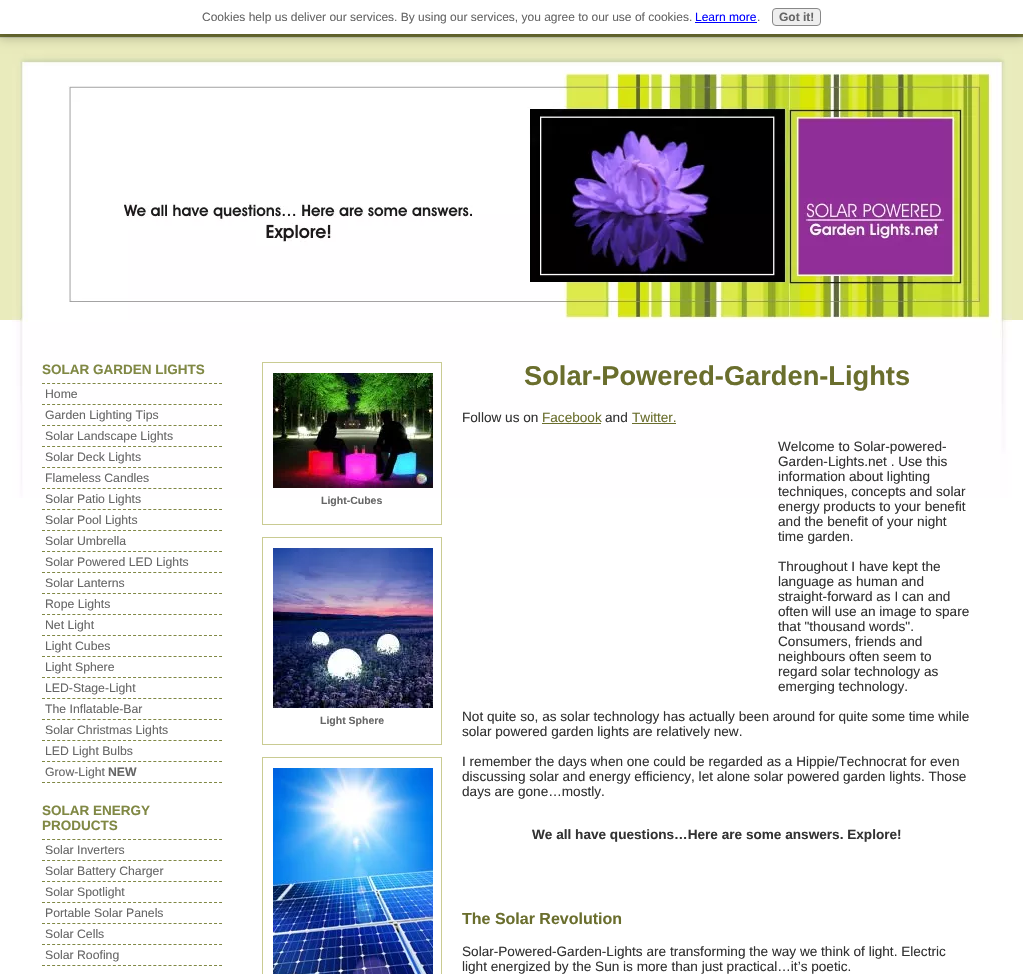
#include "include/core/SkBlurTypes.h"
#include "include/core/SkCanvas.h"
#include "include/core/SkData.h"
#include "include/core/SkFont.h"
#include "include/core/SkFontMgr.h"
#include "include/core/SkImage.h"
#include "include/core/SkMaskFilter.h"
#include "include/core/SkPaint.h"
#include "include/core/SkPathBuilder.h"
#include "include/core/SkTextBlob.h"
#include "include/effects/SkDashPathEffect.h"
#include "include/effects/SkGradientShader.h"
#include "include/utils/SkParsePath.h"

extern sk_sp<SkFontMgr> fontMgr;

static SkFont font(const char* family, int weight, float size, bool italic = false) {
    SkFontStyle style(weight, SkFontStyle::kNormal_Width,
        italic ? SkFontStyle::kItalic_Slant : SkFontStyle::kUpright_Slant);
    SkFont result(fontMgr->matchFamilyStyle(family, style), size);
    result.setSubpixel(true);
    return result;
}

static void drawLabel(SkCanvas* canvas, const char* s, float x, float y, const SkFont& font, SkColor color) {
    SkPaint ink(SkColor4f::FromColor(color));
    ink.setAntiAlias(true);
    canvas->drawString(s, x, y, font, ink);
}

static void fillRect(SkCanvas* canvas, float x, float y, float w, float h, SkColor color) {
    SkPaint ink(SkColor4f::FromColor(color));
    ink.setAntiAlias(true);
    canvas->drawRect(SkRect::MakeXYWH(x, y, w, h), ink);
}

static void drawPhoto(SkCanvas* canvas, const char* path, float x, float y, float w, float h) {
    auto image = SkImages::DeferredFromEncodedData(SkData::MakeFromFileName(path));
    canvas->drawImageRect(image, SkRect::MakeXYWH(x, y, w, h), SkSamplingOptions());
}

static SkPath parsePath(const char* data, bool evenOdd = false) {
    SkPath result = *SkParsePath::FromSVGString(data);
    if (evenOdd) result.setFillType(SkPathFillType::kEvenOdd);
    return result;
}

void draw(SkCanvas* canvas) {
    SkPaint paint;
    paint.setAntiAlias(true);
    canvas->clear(0xFFFFFFFF);
    drawPhoto(canvas, "assets/img1.png", 0, 34, 1023, 286);
    drawPhoto(canvas, "assets/img2.png", 12, 50, 1000, 448);
    paint.setColor(0x33000000);
    paint.setMaskFilter(SkMaskFilter::MakeBlur(kNormal_SkBlurStyle, 5));
    canvas->drawRect(SkRect::MakeXYWH(-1, 3, 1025, 36), paint);
    paint.setMaskFilter(nullptr);
    fillRect(canvas, 0, 0, 1023, 34, 0xFFFFFFFF);
    SkFont font1 = font("Liberation Sans", 400, 12);
    drawLabel(canvas, "Cookies help us deliver our services. By using our services, you agree to our use of cookies.", 202, 21, font1, 0xFF666666);
    drawLabel(canvas, "Learn more", 695, 21, font1, 0xFF0000FF);
    fillRect(canvas, 695, 22, 62, 1, 0xFF0000FF);
    drawLabel(canvas, ".", 757, 21, font1, 0xFF666666);
    paint.setColor(0xFFEEEEEE);
    canvas->drawRoundRect(SkRect::MakeXYWH(772.5f, 8.5f, 48, 17), 3.5f, 3.5f, paint);
    paint.setStroke(true);
    paint.setStrokeWidth(1);
    paint.setColor(0xFF888888);
    canvas->drawRoundRect(SkRect::MakeXYWH(772.5f, 8.5f, 48, 17), 3.5f, 3.5f, paint);
    SkFont font2 = font("Liberation Sans", 700, 12);
    drawLabel(canvas, "Got it!", 779, 21, font2, 0xFF666666);
    drawPhoto(canvas, "assets/img3.png", 68, 70, 924, 250);
    SkFont font3 = font("Liberation Sans", 700, 13.5f);
    drawLabel(canvas, "SOLAR GARDEN LIGHTS", 42, 374, font3, 0xFF808844);
    paint.setColor(0xFF808844);
    paint.setPathEffect(SkDashPathEffect::Make({{3, 2.06f}}, 0));
    canvas->drawPath(parsePath("M42 383.5H222"), paint);
    paint.setPathEffect(nullptr);
    paint.setPathEffect(SkDashPathEffect::Make({{3, 2.06f}}, 0));
    canvas->drawPath(parsePath("M42 404.5H222"), paint);
    paint.setPathEffect(nullptr);
    SkFont font4 = font("Liberation Sans", 400, 12.25f);
    drawLabel(canvas, "Home", 45, 398, font4, 0xFF666666);
    paint.setPathEffect(SkDashPathEffect::Make({{3, 2.06f}}, 0));
    canvas->drawPath(parsePath("M42 425.5H222"), paint);
    paint.setPathEffect(nullptr);
    drawLabel(canvas, "Garden Lighting Tips", 45, 419, font4, 0xFF666666);
    paint.setPathEffect(SkDashPathEffect::Make({{3, 2.06f}}, 0));
    canvas->drawPath(parsePath("M42 446.5H222"), paint);
    paint.setPathEffect(nullptr);
    drawLabel(canvas, "Solar Landscape Lights", 45, 440, font4, 0xFF666666);
    paint.setPathEffect(SkDashPathEffect::Make({{3, 2.06f}}, 0));
    canvas->drawPath(parsePath("M42 467.5H222"), paint);
    paint.setPathEffect(nullptr);
    drawLabel(canvas, "Solar Deck Lights", 45, 461, font4, 0xFF666666);
    paint.setPathEffect(SkDashPathEffect::Make({{3, 2.06f}}, 0));
    canvas->drawPath(parsePath("M42 488.5H222"), paint);
    paint.setPathEffect(nullptr);
    drawLabel(canvas, "Flameless Candles", 45, 482, font4, 0xFF666666);
    paint.setPathEffect(SkDashPathEffect::Make({{3, 2.06f}}, 0));
    canvas->drawPath(parsePath("M42 509.5H222"), paint);
    paint.setPathEffect(nullptr);
    drawLabel(canvas, "Solar Patio Lights", 45, 503, font4, 0xFF666666);
    paint.setPathEffect(SkDashPathEffect::Make({{3, 2.06f}}, 0));
    canvas->drawPath(parsePath("M42 530.5H222"), paint);
    paint.setPathEffect(nullptr);
    drawLabel(canvas, "Solar Pool Lights", 45, 524, font4, 0xFF666666);
    paint.setPathEffect(SkDashPathEffect::Make({{3, 2.06f}}, 0));
    canvas->drawPath(parsePath("M42 551.5H222"), paint);
    paint.setPathEffect(nullptr);
    drawLabel(canvas, "Solar Umbrella", 45, 545, font4, 0xFF666666);
    paint.setPathEffect(SkDashPathEffect::Make({{3, 2.06f}}, 0));
    canvas->drawPath(parsePath("M42 572.5H222"), paint);
    paint.setPathEffect(nullptr);
    drawLabel(canvas, "Solar Powered LED Lights", 45, 566, font4, 0xFF666666);
    paint.setPathEffect(SkDashPathEffect::Make({{3, 2.06f}}, 0));
    canvas->drawPath(parsePath("M42 593.5H222"), paint);
    paint.setPathEffect(nullptr);
    drawLabel(canvas, "Solar Lanterns", 45, 587, font4, 0xFF666666);
    paint.setPathEffect(SkDashPathEffect::Make({{3, 2.06f}}, 0));
    canvas->drawPath(parsePath("M42 614.5H222"), paint);
    paint.setPathEffect(nullptr);
    drawLabel(canvas, "Rope Lights", 45, 608, font4, 0xFF666666);
    paint.setPathEffect(SkDashPathEffect::Make({{3, 2.06f}}, 0));
    canvas->drawPath(parsePath("M42 635.5H222"), paint);
    paint.setPathEffect(nullptr);
    drawLabel(canvas, "Net Light", 45, 629, font4, 0xFF666666);
    paint.setPathEffect(SkDashPathEffect::Make({{3, 2.06f}}, 0));
    canvas->drawPath(parsePath("M42 656.5H222"), paint);
    paint.setPathEffect(nullptr);
    drawLabel(canvas, "Light Cubes", 45, 650, font4, 0xFF666666);
    paint.setPathEffect(SkDashPathEffect::Make({{3, 2.06f}}, 0));
    canvas->drawPath(parsePath("M42 677.5H222"), paint);
    paint.setPathEffect(nullptr);
    drawLabel(canvas, "Light Sphere", 45, 671, font4, 0xFF666666);
    paint.setPathEffect(SkDashPathEffect::Make({{3, 2.06f}}, 0));
    canvas->drawPath(parsePath("M42 698.5H222"), paint);
    paint.setPathEffect(nullptr);
    drawLabel(canvas, "LED-Stage-Light", 45, 692, font4, 0xFF666666);
    paint.setPathEffect(SkDashPathEffect::Make({{3, 2.06f}}, 0));
    canvas->drawPath(parsePath("M42 719.5H222"), paint);
    paint.setPathEffect(nullptr);
    drawLabel(canvas, "The Inflatable-Bar", 45, 713, font4, 0xFF666666);
    paint.setPathEffect(SkDashPathEffect::Make({{3, 2.06f}}, 0));
    canvas->drawPath(parsePath("M42 740.5H222"), paint);
    paint.setPathEffect(nullptr);
    drawLabel(canvas, "Solar Christmas Lights", 45, 734, font4, 0xFF666666);
    paint.setPathEffect(SkDashPathEffect::Make({{3, 2.06f}}, 0));
    canvas->drawPath(parsePath("M42 761.5H222"), paint);
    paint.setPathEffect(nullptr);
    drawLabel(canvas, "LED Light Bulbs", 45, 755, font4, 0xFF666666);
    paint.setPathEffect(SkDashPathEffect::Make({{3, 2.06f}}, 0));
    canvas->drawPath(parsePath("M42 782.5H222"), paint);
    paint.setPathEffect(nullptr);
    drawLabel(canvas, "Grow-Light", 45, 776, font4, 0xFF666666);
    SkFont font5 = font("Liberation Sans", 700, 12.25f);
    drawLabel(canvas, "NEW", 108, 776, font5, 0xFF666666);
    drawLabel(canvas, "SOLAR ENERGY", 42, 815, font3, 0xFF808844);
    drawLabel(canvas, "PRODUCTS", 42, 830, font3, 0xFF808844);
    paint.setPathEffect(SkDashPathEffect::Make({{3, 2.06f}}, 0));
    canvas->drawPath(parsePath("M42 839.5H222"), paint);
    paint.setPathEffect(nullptr);
    paint.setPathEffect(SkDashPathEffect::Make({{3, 2.06f}}, 0));
    canvas->drawPath(parsePath("M42 860.5H222"), paint);
    paint.setPathEffect(nullptr);
    drawLabel(canvas, "Solar Inverters", 45, 854, font4, 0xFF666666);
    paint.setPathEffect(SkDashPathEffect::Make({{3, 2.06f}}, 0));
    canvas->drawPath(parsePath("M42 881.5H222"), paint);
    paint.setPathEffect(nullptr);
    drawLabel(canvas, "Solar Battery Charger", 45, 875, font4, 0xFF666666);
    paint.setPathEffect(SkDashPathEffect::Make({{3, 2.06f}}, 0));
    canvas->drawPath(parsePath("M42 902.5H222"), paint);
    paint.setPathEffect(nullptr);
    drawLabel(canvas, "Solar Spotlight", 45, 896, font4, 0xFF666666);
    paint.setPathEffect(SkDashPathEffect::Make({{3, 2.06f}}, 0));
    canvas->drawPath(parsePath("M42 923.5H222"), paint);
    paint.setPathEffect(nullptr);
    drawLabel(canvas, "Portable Solar Panels", 45, 917, font4, 0xFF666666);
    paint.setPathEffect(SkDashPathEffect::Make({{3, 2.06f}}, 0));
    canvas->drawPath(parsePath("M42 944.5H222"), paint);
    paint.setPathEffect(nullptr);
    drawLabel(canvas, "Solar Cells", 45, 938, font4, 0xFF666666);
    paint.setPathEffect(SkDashPathEffect::Make({{3, 2.06f}}, 0));
    canvas->drawPath(parsePath("M42 965.5H222"), paint);
    paint.setPathEffect(nullptr);
    drawLabel(canvas, "Solar Roofing", 45, 959, font4, 0xFF666666);
    paint.setColor(0xFFC9CB92);
    canvas->drawRect(SkRect::MakeXYWH(262.5f, 362.5f, 179, 162), paint);
    drawPhoto(canvas, "assets/img4.png", 273, 373, 160, 115);
    SkFont font6 = font("Liberation Sans", 700, 10.5f);
    drawLabel(canvas, "Light-Cubes", 321, 504, font6, 0xFF666666);
    canvas->drawRect(SkRect::MakeXYWH(262.5f, 537.5f, 179, 207), paint);
    drawPhoto(canvas, "assets/img5.png", 273, 548, 160, 160);
    drawLabel(canvas, "Light Sphere", 320, 724, font6, 0xFF666666);
    canvas->drawRect(SkRect::MakeXYWH(262.5f, 757.5f, 179, 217), paint);
    drawPhoto(canvas, "assets/img6.png", 273, 768, 160, 206);
    SkFont font7 = font("Liberation Sans", 700, 27.25f);
    drawLabel(canvas, "Solar-Powered-Garden-Lights", 524, 385, font7, 0xFF6A6E2D);
    SkFont font8 = font("Liberation Sans", 400, 13.6f);
    drawLabel(canvas, "Follow us on", 462, 422, font8, 0xFF333333);
    drawLabel(canvas, "Facebook", 542, 422, font8, 0xFF6A6E2D);
    fillRect(canvas, 542, 423, 59, 1, 0xFF6A6E2D);
    drawLabel(canvas, "and", 605, 422, font8, 0xFF333333);
    drawLabel(canvas, "Twitter.", 632, 422, font8, 0xFF6A6E2D);
    fillRect(canvas, 632, 423, 44, 1, 0xFF6A6E2D);
    drawLabel(canvas, "Welcome to Solar-powered-", 778, 451, font8, 0xFF333333);
    drawLabel(canvas, "Garden-Lights.net . Use this", 778, 466, font8, 0xFF333333);
    drawLabel(canvas, "information about lighting", 778, 481, font8, 0xFF333333);
    drawLabel(canvas, "techniques, concepts and solar", 778, 496, font8, 0xFF333333);
    drawLabel(canvas, "energy products to your benefit", 778, 511, font8, 0xFF333333);
    drawLabel(canvas, "and the benefit of your night", 778, 526, font8, 0xFF333333);
    drawLabel(canvas, "time garden.", 778, 541, font8, 0xFF333333);
    drawLabel(canvas, "Throughout I have kept the", 778, 571, font8, 0xFF333333);
    drawLabel(canvas, "language as human and", 778, 586, font8, 0xFF333333);
    drawLabel(canvas, "straight-forward as I can and", 778, 601, font8, 0xFF333333);
    drawLabel(canvas, "often will use an image to spare", 778, 616, font8, 0xFF333333);
    drawLabel(canvas, "that \"thousand words\".", 778, 631, font8, 0xFF333333);
    drawLabel(canvas, "Consumers, friends and", 778, 646, font8, 0xFF333333);
    drawLabel(canvas, "neighbours often seem to", 778, 661, font8, 0xFF333333);
    drawLabel(canvas, "regard solar technology as", 778, 676, font8, 0xFF333333);
    drawLabel(canvas, "emerging technology.", 778, 691, font8, 0xFF333333);
    drawLabel(canvas, "Not quite so, as solar technology has actually been around for quite some time while", 462, 721, font8, 0xFF333333);
    drawLabel(canvas, "solar powered garden lights are relatively new.", 462, 736, font8, 0xFF333333);
    drawLabel(canvas, "I remember the days when one could be regarded as a Hippie/Technocrat for even", 462, 766, font8, 0xFF333333);
    drawLabel(canvas, "discussing solar and energy efficiency, let alone solar powered garden lights. Those", 462, 781, font8, 0xFF333333);
    drawLabel(canvas, "days are gone…mostly.", 462, 796, font8, 0xFF333333);
    SkFont font9 = font("Liberation Sans", 700, 13.6f);
    drawLabel(canvas, "We all have questions…Here are some answers. Explore!", 532, 839, font9, 0xFF333333);
    SkFont font10 = font("Liberation Sans", 700, 16);
    drawLabel(canvas, "The Solar Revolution", 462, 924, font10, 0xFF6A6E2D);
    drawLabel(canvas, "Solar-Powered-Garden-Lights are transforming the way we think of light. Electric", 462, 956, font8, 0xFF333333);
    drawLabel(canvas, "light energized by the Sun is more than just practical…it’s poetic.", 462, 971, font8, 0xFF333333);
}
